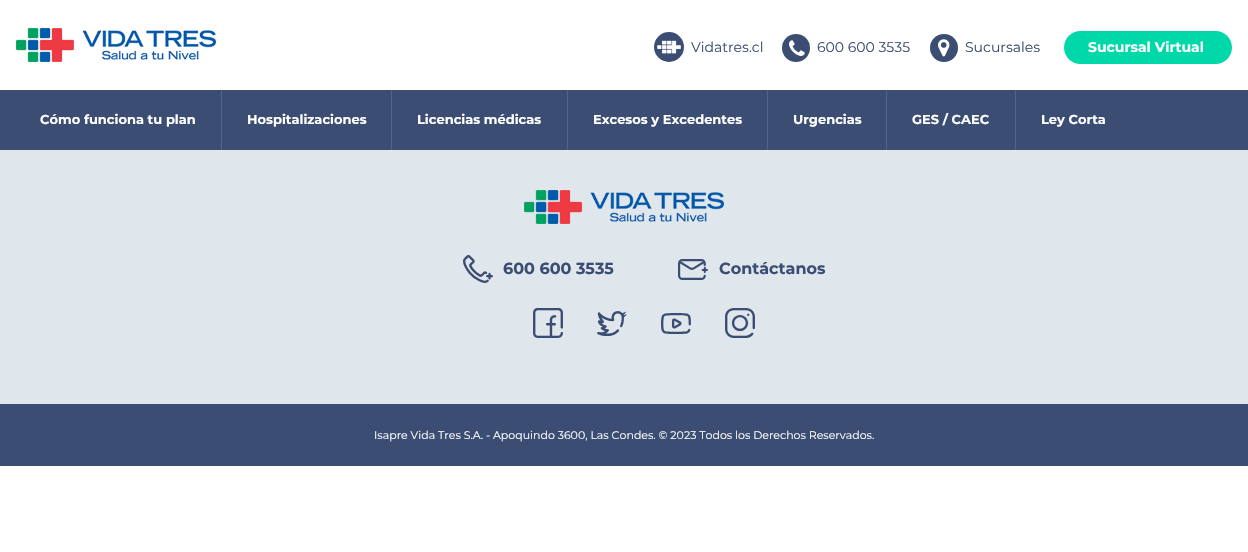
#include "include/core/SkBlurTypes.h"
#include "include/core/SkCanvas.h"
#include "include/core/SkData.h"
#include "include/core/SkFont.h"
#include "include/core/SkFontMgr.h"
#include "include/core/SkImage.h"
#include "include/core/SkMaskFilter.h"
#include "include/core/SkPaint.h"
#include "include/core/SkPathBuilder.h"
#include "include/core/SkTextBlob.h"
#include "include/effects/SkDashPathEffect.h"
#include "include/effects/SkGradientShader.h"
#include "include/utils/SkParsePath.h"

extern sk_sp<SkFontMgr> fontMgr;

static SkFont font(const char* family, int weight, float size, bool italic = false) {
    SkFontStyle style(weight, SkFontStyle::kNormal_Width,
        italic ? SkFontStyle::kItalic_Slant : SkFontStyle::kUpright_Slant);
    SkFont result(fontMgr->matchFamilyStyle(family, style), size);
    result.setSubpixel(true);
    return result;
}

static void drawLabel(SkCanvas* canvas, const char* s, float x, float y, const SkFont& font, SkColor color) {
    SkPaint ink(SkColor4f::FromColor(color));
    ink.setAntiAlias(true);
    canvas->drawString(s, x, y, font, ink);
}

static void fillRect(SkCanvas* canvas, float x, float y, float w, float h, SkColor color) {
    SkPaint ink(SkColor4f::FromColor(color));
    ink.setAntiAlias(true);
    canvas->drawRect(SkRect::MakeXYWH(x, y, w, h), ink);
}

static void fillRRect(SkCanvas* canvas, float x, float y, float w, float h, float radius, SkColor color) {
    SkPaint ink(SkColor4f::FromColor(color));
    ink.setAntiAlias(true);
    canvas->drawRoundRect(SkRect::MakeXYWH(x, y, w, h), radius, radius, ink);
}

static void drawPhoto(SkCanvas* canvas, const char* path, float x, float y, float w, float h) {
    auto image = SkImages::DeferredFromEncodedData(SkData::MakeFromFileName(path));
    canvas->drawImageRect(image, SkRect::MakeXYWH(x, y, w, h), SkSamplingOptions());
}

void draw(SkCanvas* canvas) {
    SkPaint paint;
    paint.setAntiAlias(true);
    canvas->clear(0xFFFFFFFF);
    drawPhoto(canvas, "assets/img1.png", 16, 28, 200, 34);
    paint.setColor(0xFF3B4D72);
    canvas->drawCircle(669, 47, 15, paint);
    drawPhoto(canvas, "assets/img2.png", 657, 40, 24, 14);
    SkFont font1 = font("Montserrat", 400, 14);
    drawLabel(canvas, "Vidatres.cl", 691, 52, font1, 0xFF3B4D72);
    canvas->drawCircle(796, 48, 14, paint);
    drawPhoto(canvas, "assets/img3.png", 789, 40, 16, 16);
    drawLabel(canvas, "600 600 3535", 817, 52, font1, 0xFF3B4D72);
    canvas->drawCircle(944, 48, 14, paint);
    drawPhoto(canvas, "assets/img4.png", 938, 39, 12, 18);
    drawLabel(canvas, "Sucursales", 965, 52, font1, 0xFF3B4D72);
    fillRRect(canvas, 1064, 31, 168, 33, 16.5f, 0xFF01D8A9);
    SkFont font2 = font("Montserrat", 700, 14);
    drawLabel(canvas, "Sucursal Virtual", 1088, 52, font2, 0xFFFFFFFF);
    fillRect(canvas, 0, 90, 1248, 60, 0xFF3B4D72);
    fillRect(canvas, 221, 90, 1, 60, 0xFF50648D);
    SkFont font3 = font("Montserrat", 700, 13);
    drawLabel(canvas, "Cómo funciona tu plan", 40, 124, font3, 0xFFFFFFFF);
    fillRect(canvas, 391, 90, 1, 60, 0xFF50648D);
    drawLabel(canvas, "Hospitalizaciones", 247, 124, font3, 0xFFFFFFFF);
    fillRect(canvas, 567, 90, 1, 60, 0xFF50648D);
    drawLabel(canvas, "Licencias médicas", 417, 124, font3, 0xFFFFFFFF);
    fillRect(canvas, 767, 90, 1, 60, 0xFF50648D);
    drawLabel(canvas, "Excesos y Excedentes", 593, 124, font3, 0xFFFFFFFF);
    fillRect(canvas, 886, 90, 1, 60, 0xFF50648D);
    drawLabel(canvas, "Urgencias", 793, 124, font3, 0xFFFFFFFF);
    fillRect(canvas, 1015, 90, 1, 60, 0xFF50648D);
    drawLabel(canvas, "GES / CAEC", 912, 124, font3, 0xFFFFFFFF);
    drawLabel(canvas, "Ley Corta", 1041, 124, font3, 0xFFFFFFFF);
    fillRect(canvas, 0, 150, 1248, 254, 0xFFDFE7EC);
    drawPhoto(canvas, "assets/img5.png", 524, 190, 200, 34);
    drawPhoto(canvas, "assets/img6.png", 463, 255, 30, 28);
    SkFont font4 = font("Montserrat", 700, 16);
    drawLabel(canvas, "600 600 3535", 503, 274, font4, 0xFF3B4D72);
    drawPhoto(canvas, "assets/img7.png", 678, 259, 30, 21);
    drawLabel(canvas, "Contáctanos", 719, 274, font4, 0xFF3B4D72);
    drawPhoto(canvas, "assets/img8.png", 533, 308, 30, 30);
    drawPhoto(canvas, "assets/img9.png", 597, 311, 30, 25);
    drawPhoto(canvas, "assets/img10.png", 661, 313, 30, 21);
    drawPhoto(canvas, "assets/img11.png", 725, 308, 30, 30);
    fillRect(canvas, 0, 404, 1248, 62, 0xFF3B4D72);
    SkFont font5 = font("Montserrat", 400, 11);
    drawLabel(canvas, "Isapre Vida Tres S.A. - Apoquindo 3600, Las Condes. © 2023 Todos los Derechos Reservados.", 374, 439, font5, 0xFFFFFFFF);
}
